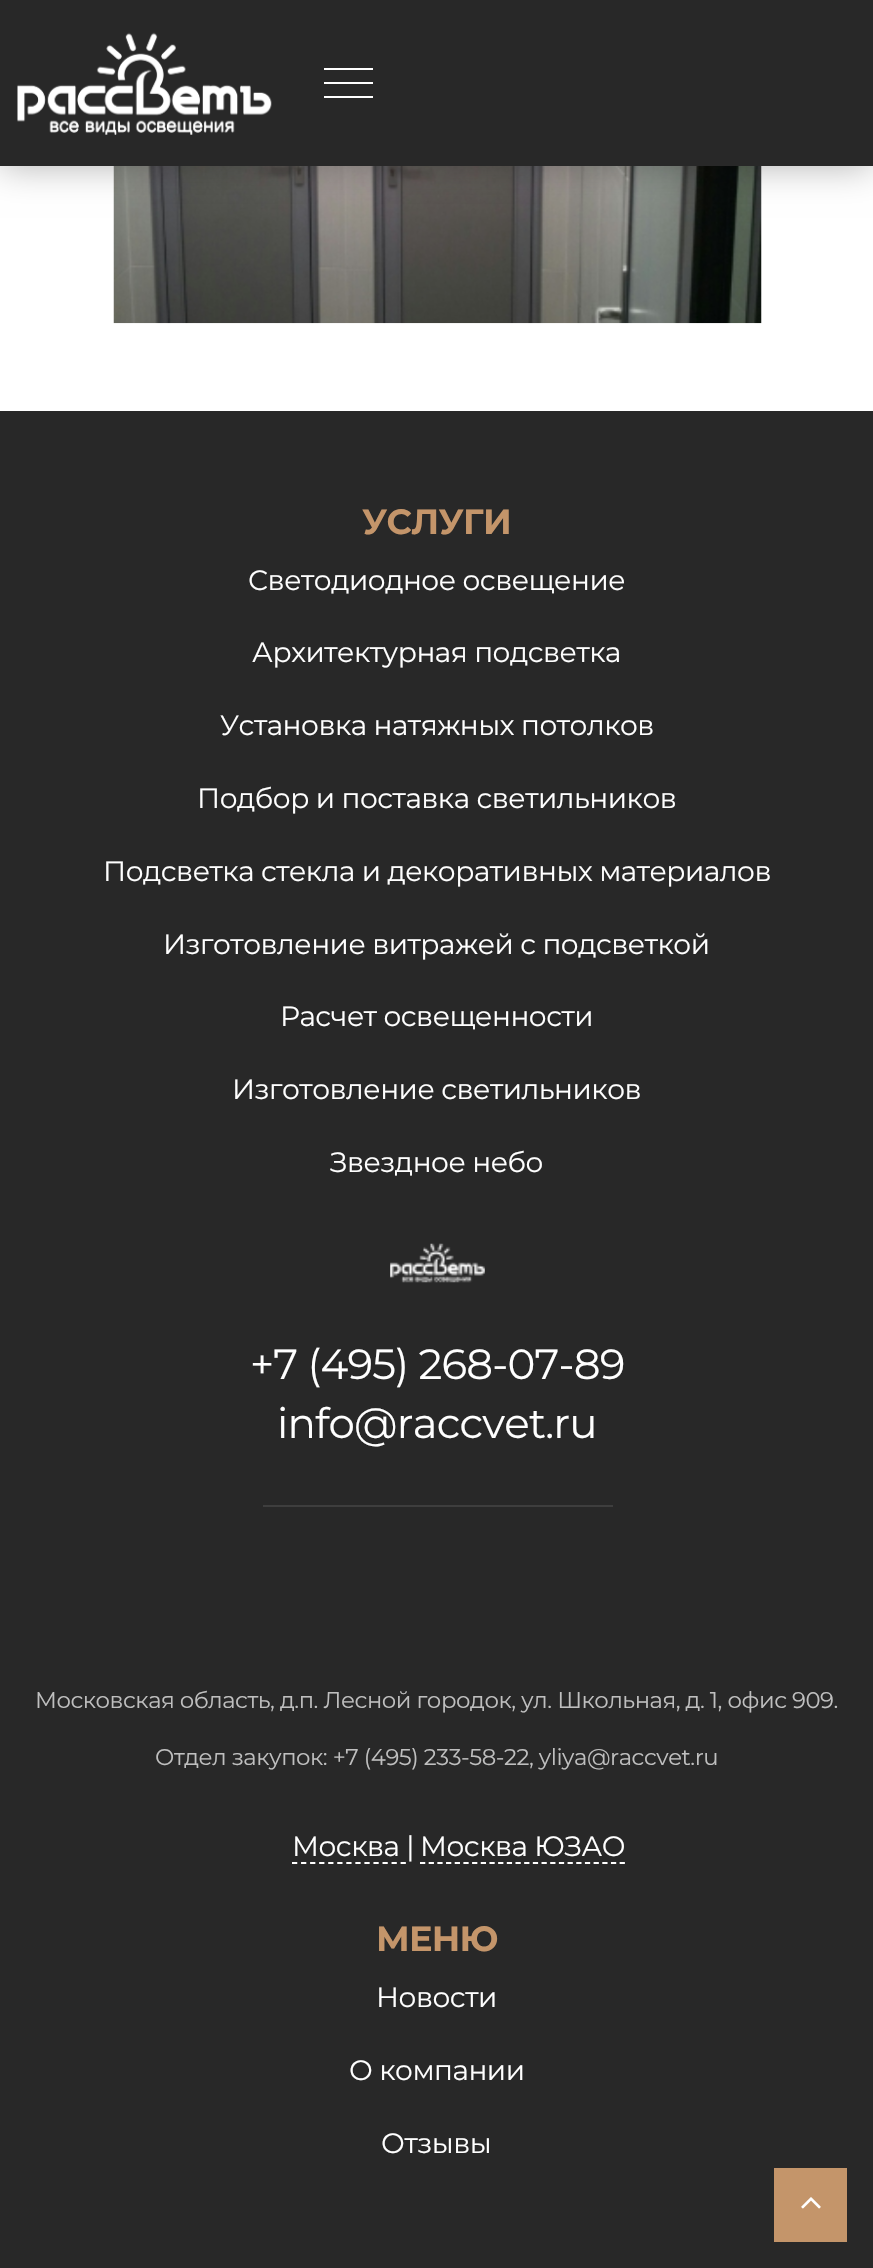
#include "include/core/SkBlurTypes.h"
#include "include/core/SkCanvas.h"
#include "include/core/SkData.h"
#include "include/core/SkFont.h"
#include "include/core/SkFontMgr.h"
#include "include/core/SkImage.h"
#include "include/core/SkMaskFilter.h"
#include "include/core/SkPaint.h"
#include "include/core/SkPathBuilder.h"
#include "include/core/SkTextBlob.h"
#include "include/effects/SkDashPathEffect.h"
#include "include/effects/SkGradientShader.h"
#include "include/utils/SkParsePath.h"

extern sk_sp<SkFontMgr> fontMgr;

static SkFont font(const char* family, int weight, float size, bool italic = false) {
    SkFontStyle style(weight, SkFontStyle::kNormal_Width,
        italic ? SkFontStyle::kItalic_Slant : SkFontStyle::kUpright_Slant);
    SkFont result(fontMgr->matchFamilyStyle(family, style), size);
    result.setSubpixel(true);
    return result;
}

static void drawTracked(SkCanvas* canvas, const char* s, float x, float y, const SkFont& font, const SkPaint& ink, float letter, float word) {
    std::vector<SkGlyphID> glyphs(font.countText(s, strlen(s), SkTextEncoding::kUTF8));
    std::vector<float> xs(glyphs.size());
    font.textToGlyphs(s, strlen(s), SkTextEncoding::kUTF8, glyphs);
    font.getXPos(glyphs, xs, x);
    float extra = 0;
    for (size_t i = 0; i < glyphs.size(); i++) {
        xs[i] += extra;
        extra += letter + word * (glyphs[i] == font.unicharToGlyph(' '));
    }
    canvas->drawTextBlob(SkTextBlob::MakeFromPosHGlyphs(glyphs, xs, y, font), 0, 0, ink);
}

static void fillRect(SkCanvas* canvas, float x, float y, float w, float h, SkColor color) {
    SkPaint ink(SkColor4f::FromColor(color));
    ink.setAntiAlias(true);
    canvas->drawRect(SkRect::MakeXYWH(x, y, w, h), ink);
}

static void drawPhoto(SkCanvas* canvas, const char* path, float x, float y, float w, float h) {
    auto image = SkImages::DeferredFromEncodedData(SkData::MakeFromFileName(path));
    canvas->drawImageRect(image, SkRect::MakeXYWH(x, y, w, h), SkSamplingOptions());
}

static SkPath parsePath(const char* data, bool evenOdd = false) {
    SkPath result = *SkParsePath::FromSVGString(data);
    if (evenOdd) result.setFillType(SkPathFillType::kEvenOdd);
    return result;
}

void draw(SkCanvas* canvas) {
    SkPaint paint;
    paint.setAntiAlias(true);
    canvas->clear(0xFFFFFFFF);
    drawPhoto(canvas, "assets/img2.png", 113, 166, 649, 158);
    paint.setColor(0x4D000000);
    paint.setMaskFilter(SkMaskFilter::MakeBlur(kNormal_SkBlurStyle, 17.5f));
    canvas->drawRect(SkRect::MakeXYWH(0, 0, 873, 166), paint);
    paint.setMaskFilter(nullptr);
    fillRect(canvas, 0, 0, 873, 166, 0xFF282828);
    drawPhoto(canvas, "assets/img1.png", 17, 32, 255, 103);
    fillRect(canvas, 324, 82, 49, 2, 0xFFFFFFFF);
    fillRect(canvas, 324, 68, 49, 2, 0xFFFFFFFF);
    fillRect(canvas, 324, 96, 49, 2, 0xFFFFFFFF);
    fillRect(canvas, 0, 411, 873, 1857, 0xFF282828);
    SkFont font1 = font("Montserrat", 700, 35);
    paint.setColor(0xFFC4956A);
    drawTracked(canvas, "УСЛУГИ", 362, 534, font1, paint, -0.75f, 0);
    SkFont font2 = font("Montserrat", 400, 28);
    paint.setColor(0xFFFFFFFF);
    drawTracked(canvas, "Светодиодное освещение", 248, 590, font2, paint, -0.45f, 0);
    drawTracked(canvas, "Архитектурная подсветка", 252, 662, font2, paint, -0.45f, 0);
    drawTracked(canvas, "Установка натяжных потолков", 220, 735, font2, paint, -0.45f, 0);
    drawTracked(canvas, "Подбор и поставка светильников", 197, 808, font2, paint, -0.45f, 0);
    drawTracked(canvas, "Подсветка стекла и декоративных материалов", 103, 881, font2, paint, -0.45f, 0);
    drawTracked(canvas, "Изготовление витражей с подсветкой", 163, 954, font2, paint, -0.45f, 0);
    drawTracked(canvas, "Расчет освещенности", 280, 1026, font2, paint, -0.45f, 0);
    drawTracked(canvas, "Изготовление светильников", 232, 1099, font2, paint, -0.45f, 0);
    drawTracked(canvas, "Звездное небо", 330, 1172, font2, paint, -0.45f, 0);
    drawPhoto(canvas, "assets/img3.png", 390, 1243, 95, 40);
    SkFont font3 = font("Montserrat", 400, 42);
    drawTracked(canvas, "+7 (495) 268-07-89", 250, 1379, font3, paint, -0.8f, 0);
    drawTracked(canvas, "info@raccvet.ru", 277, 1438, font3, paint, -0.8f, 0);
    fillRect(canvas, 263, 1505, 350, 2, 0xFF3E3E3E);
    SkFont font4 = font("Montserrat", 400, 22.75f);
    paint.setColor(0xFFBFBFBF);
    drawTracked(canvas, "Московская область, д.п. Лесной городок, ул. Школьная, д. 1, офис 909.", 35, 1708, font4, paint, -0.45f, 0);
    drawTracked(canvas, "Отдел закупок: +7 (495) 233-58-22, yliya@raccvet.ru", 155, 1765, font4, paint, -0.45f, 0);
    paint.setColor(0xFFFFFFFF);
    drawTracked(canvas, "Москва |", 292, 1856, font2, paint, -0.45f, 0);
    paint.setStroke(true);
    paint.setStrokeWidth(1.8f);
    paint.setPathEffect(SkDashPathEffect::Make({{5.25f, 3.8f}}, 0));
    canvas->drawPath(parsePath("M292 1863H406"), paint);
    paint.setPathEffect(nullptr);
    paint.setStroke(false);
    drawTracked(canvas, "Москва ЮЗАО", 420, 1856, font2, paint, -0.45f, 0);
    paint.setStroke(true);
    paint.setPathEffect(SkDashPathEffect::Make({{5.25f, 3.43f}}, 0));
    canvas->drawPath(parsePath("M420 1863H625"), paint);
    paint.setPathEffect(nullptr);
    paint.setStroke(false);
    paint.setColor(0xFFC4956A);
    drawTracked(canvas, "МЕНЮ", 376, 1951, font1, paint, -0.75f, 0);
    paint.setColor(0xFFFFFFFF);
    drawTracked(canvas, "Новости", 376, 2007, font2, paint, -0.45f, 0);
    drawTracked(canvas, "О компании", 349, 2080, font2, paint, -0.45f, 0);
    drawTracked(canvas, "Отзывы", 381, 2153, font2, paint, -0.45f, 0);
    fillRect(canvas, 774, 2168, 73, 74, 0xFFC4956A);
    drawPhoto(canvas, "assets/img4.png", 801, 2197, 20, 12);
}
